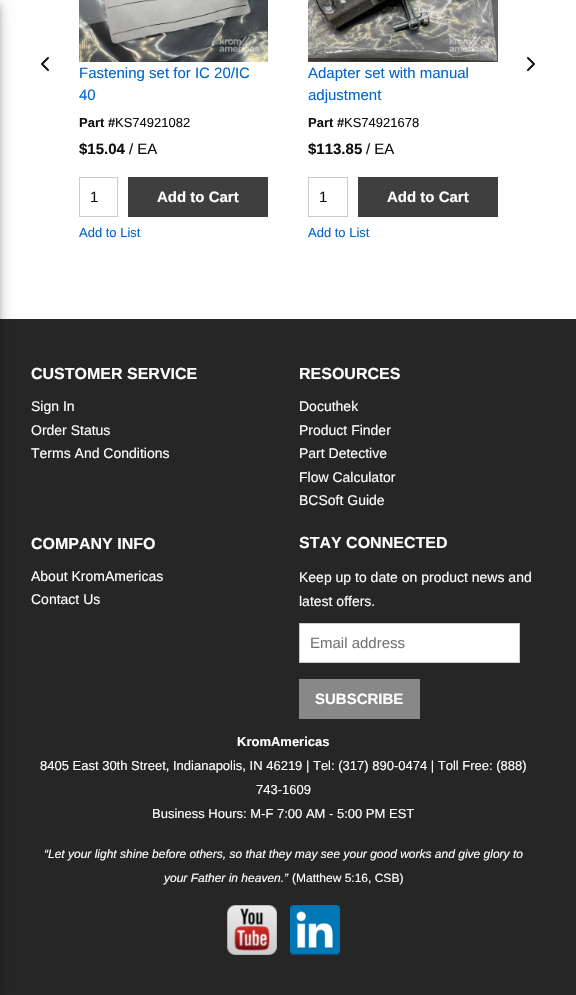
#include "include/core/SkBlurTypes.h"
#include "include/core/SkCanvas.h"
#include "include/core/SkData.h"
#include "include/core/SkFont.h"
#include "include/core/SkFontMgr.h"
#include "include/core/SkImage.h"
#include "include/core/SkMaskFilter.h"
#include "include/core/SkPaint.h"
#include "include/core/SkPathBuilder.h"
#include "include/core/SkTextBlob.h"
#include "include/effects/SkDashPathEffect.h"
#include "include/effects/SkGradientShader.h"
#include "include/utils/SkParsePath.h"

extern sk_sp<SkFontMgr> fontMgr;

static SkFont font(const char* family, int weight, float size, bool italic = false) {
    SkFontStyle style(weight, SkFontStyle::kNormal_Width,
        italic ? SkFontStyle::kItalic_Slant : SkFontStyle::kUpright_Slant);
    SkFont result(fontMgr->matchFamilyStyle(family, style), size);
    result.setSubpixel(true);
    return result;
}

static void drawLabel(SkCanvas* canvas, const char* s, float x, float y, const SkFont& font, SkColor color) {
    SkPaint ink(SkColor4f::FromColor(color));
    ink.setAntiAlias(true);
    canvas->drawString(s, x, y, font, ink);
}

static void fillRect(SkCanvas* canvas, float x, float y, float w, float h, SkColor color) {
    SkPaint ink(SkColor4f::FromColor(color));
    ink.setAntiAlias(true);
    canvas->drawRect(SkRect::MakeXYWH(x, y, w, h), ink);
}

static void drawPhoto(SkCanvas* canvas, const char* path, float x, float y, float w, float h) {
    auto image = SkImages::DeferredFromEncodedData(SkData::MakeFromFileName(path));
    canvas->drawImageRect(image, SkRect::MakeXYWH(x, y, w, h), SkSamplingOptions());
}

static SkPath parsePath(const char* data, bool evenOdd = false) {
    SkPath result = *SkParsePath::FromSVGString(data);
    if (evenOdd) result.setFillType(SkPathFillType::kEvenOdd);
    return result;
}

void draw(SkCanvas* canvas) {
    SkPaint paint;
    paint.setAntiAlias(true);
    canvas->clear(0xFFFFFFFF);
    fillRect(canvas, 0, 319, 576, 676, 0xFF262626);
    paint.setColor(0x1F000000);
    paint.setMaskFilter(SkMaskFilter::MakeBlur(kNormal_SkBlurStyle, 9));
    canvas->drawRect(SkRect::MakeXYWH(-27, 1, 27, 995), paint);
    paint.setMaskFilter(nullptr);
    paint.setColor(0x24000000);
    paint.setMaskFilter(SkMaskFilter::MakeBlur(kNormal_SkBlurStyle, 5));
    canvas->drawRect(SkRect::MakeXYWH(-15, 6, 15, 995), paint);
    paint.setMaskFilter(nullptr);
    paint.setColor(0x33000000);
    paint.setMaskFilter(SkMaskFilter::MakeBlur(kNormal_SkBlurStyle, 2.5f));
    canvas->drawRect(SkRect::MakeXYWH(-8, 4, 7, 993), paint);
    paint.setMaskFilter(nullptr);
    paint.setStroke(true);
    paint.setStrokeWidth(2);
    paint.setStrokeCap(SkPaint::kRound_Cap);
    paint.setStrokeJoin(SkPaint::kRound_Join);
    paint.setColor(0xFF0F0F0F);
    canvas->drawPath(parsePath("M48 70L42 64L48 58"), paint);
    canvas->drawPath(parsePath("M528 70L534 64L528 58"), paint);
    drawPhoto(canvas, "assets/img1.png", 79, 0, 189, 62);
    SkFont font1 = font("Liberation Sans", 400, 15);
    drawLabel(canvas, "Fastening set for IC 20/IC", 79, 78, font1, 0xFF0066CC);
    drawLabel(canvas, "40", 79, 100, font1, 0xFF0066CC);
    SkFont font2 = font("Liberation Sans", 700, 13);
    drawLabel(canvas, "Part #", 79, 127, font2, 0xFF0F0F0F);
    SkFont font3 = font("Liberation Sans", 400, 13);
    drawLabel(canvas, "KS74921082", 115, 127, font3, 0xFF0F0F0F);
    SkFont font4 = font("Liberation Sans", 700, 15);
    drawLabel(canvas, "$15.04", 79, 154, font4, 0xFF0F0F0F);
    drawLabel(canvas, "/ EA", 129, 154, font1, 0xFF0F0F0F);
    paint.setStrokeWidth(1);
    paint.setStrokeCap(SkPaint::kButt_Cap);
    paint.setStrokeJoin(SkPaint::kMiter_Join);
    paint.setColor(0xFFCCCCCC);
    canvas->drawRect(SkRect::MakeXYWH(79.5f, 177.5f, 38, 39), paint);
    drawLabel(canvas, "1", 90, 202, font1, 0xFF0F0F0F);
    fillRect(canvas, 128, 177, 140, 40, 0xFF3F3F3F);
    drawLabel(canvas, "Add to Cart", 157, 202, font4, 0xFFFFFFFF);
    drawLabel(canvas, "Add to List", 79, 237, font3, 0xFF0066CC);
    drawPhoto(canvas, "assets/img2.png", 308, 0, 190, 62);
    drawLabel(canvas, "Adapter set with manual", 308, 78, font1, 0xFF0066CC);
    drawLabel(canvas, "adjustment", 308, 100, font1, 0xFF0066CC);
    drawLabel(canvas, "Part #", 308, 127, font2, 0xFF0F0F0F);
    drawLabel(canvas, "KS74921678", 344, 127, font3, 0xFF0F0F0F);
    drawLabel(canvas, "$113.85", 308, 154, font4, 0xFF0F0F0F);
    drawLabel(canvas, "/ EA", 366, 154, font1, 0xFF0F0F0F);
    canvas->drawRect(SkRect::MakeXYWH(308.5f, 177.5f, 39, 39), paint);
    drawLabel(canvas, "1", 319, 202, font1, 0xFF0F0F0F);
    fillRect(canvas, 358, 177, 140, 40, 0xFF3F3F3F);
    drawLabel(canvas, "Add to Cart", 387, 202, font4, 0xFFFFFFFF);
    drawLabel(canvas, "Add to List", 308, 237, font3, 0xFF0066CC);
    SkFont font5 = font("Liberation Sans", 700, 16);
    drawLabel(canvas, "CUSTOMER SERVICE", 31, 379, font5, 0xFFFFFFFF);
    SkFont font6 = font("Liberation Sans", 400, 14);
    drawLabel(canvas, "Sign In", 31, 411, font6, 0xFFFFFFFF);
    drawLabel(canvas, "Order Status", 31, 435, font6, 0xFFFFFFFF);
    drawLabel(canvas, "Terms And Conditions", 31, 458, font6, 0xFFFFFFFF);
    drawLabel(canvas, "RESOURCES", 299, 379, font5, 0xFFFFFFFF);
    drawLabel(canvas, "Docuthek", 299, 411, font6, 0xFFFFFFFF);
    drawLabel(canvas, "Product Finder", 299, 435, font6, 0xFFFFFFFF);
    drawLabel(canvas, "Part Detective", 299, 458, font6, 0xFFFFFFFF);
    drawLabel(canvas, "Flow Calculator", 299, 482, font6, 0xFFFFFFFF);
    drawLabel(canvas, "BCSoft Guide", 299, 505, font6, 0xFFFFFFFF);
    drawLabel(canvas, "COMPANY INFO", 31, 549, font5, 0xFFFFFFFF);
    drawLabel(canvas, "About KromAmericas", 31, 581, font6, 0xFFFFFFFF);
    drawLabel(canvas, "Contact Us", 31, 604, font6, 0xFFFFFFFF);
    drawLabel(canvas, "STAY CONNECTED", 299, 548, font5, 0xFFFFFFFF);
    drawLabel(canvas, "Keep up to date on product news and", 299, 582, font6, 0xFFFFFFFF);
    drawLabel(canvas, "latest offers.", 299, 606, font6, 0xFFFFFFFF);
    paint.setStroke(false);
    paint.setColor(0xFFFFFFFF);
    canvas->drawRect(SkRect::MakeXYWH(299.5f, 623.5f, 220, 39), paint);
    paint.setStroke(true);
    paint.setColor(0xFFCCCCCC);
    canvas->drawRect(SkRect::MakeXYWH(299.5f, 623.5f, 220, 39), paint);
    drawLabel(canvas, "Email address", 310, 648, font1, 0xFF757575);
    fillRect(canvas, 299, 679, 121, 40, 0xFF888888);
    drawLabel(canvas, "SUBSCRIBE", 315, 704, font4, 0xFFFFFFFF);
    drawLabel(canvas, "KromAmericas", 237, 746, font2, 0xFFFFFFFF);
    drawLabel(canvas, "8405 East 30th Street, Indianapolis, IN 46219 | Tel: (317) 890-0474 | Toll Free: (888)", 40, 770, font3, 0xFFFFFFFF);
    drawLabel(canvas, "743-1609", 256, 794, font3, 0xFFFFFFFF);
    drawLabel(canvas, "Business Hours: M-F 7:00 AM - 5:00 PM EST", 152, 818, font3, 0xFFFFFFFF);
    SkFont font7 = font("Liberation Sans", 400, 12, true);
    drawLabel(canvas, "“Let your light shine before others, so that they may see your good works and give glory to", 44, 858, font7, 0xFFFFFFFF);
    drawLabel(canvas, "your Father in heaven.”", 164, 882, font7, 0xFFFFFFFF);
    SkFont font8 = font("Liberation Sans", 400, 12);
    drawLabel(canvas, "(Matthew 5:16, CSB)", 292, 882, font8, 0xFFFFFFFF);
    drawPhoto(canvas, "assets/img3.png", 227, 905, 50, 50);
    drawPhoto(canvas, "assets/img4.png", 290, 905, 50, 50);
}
